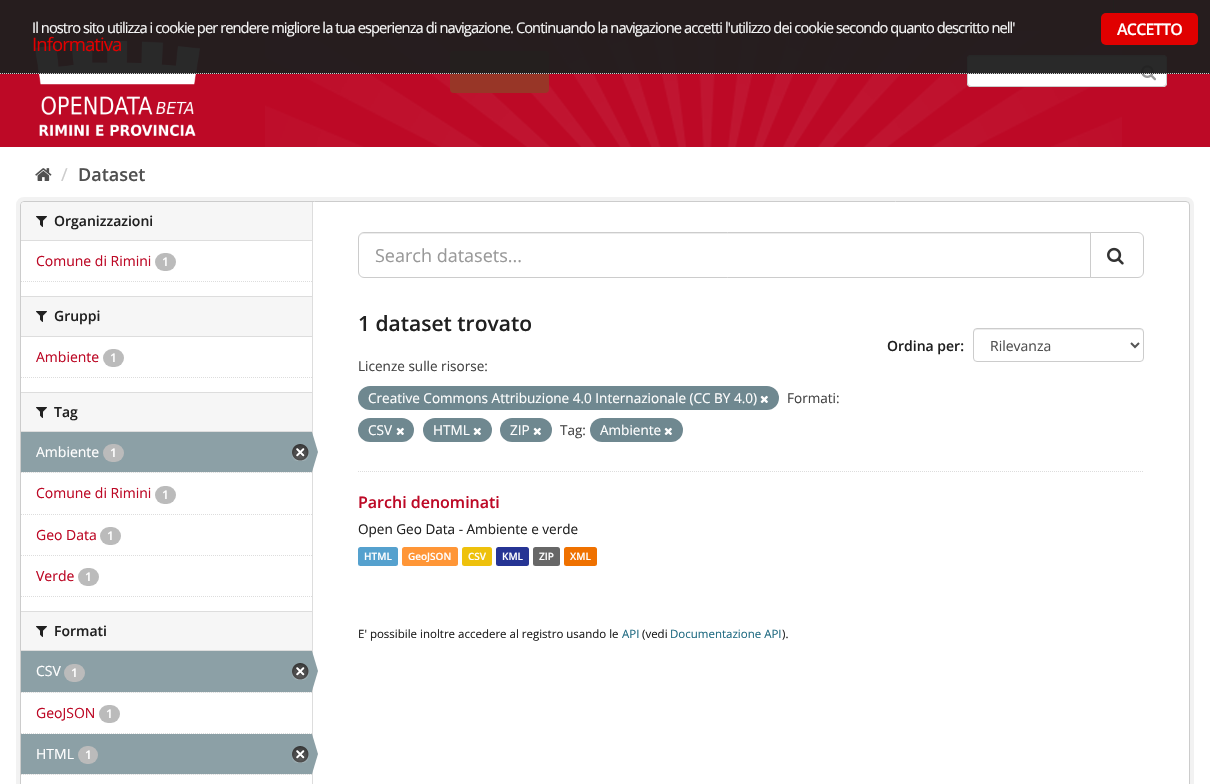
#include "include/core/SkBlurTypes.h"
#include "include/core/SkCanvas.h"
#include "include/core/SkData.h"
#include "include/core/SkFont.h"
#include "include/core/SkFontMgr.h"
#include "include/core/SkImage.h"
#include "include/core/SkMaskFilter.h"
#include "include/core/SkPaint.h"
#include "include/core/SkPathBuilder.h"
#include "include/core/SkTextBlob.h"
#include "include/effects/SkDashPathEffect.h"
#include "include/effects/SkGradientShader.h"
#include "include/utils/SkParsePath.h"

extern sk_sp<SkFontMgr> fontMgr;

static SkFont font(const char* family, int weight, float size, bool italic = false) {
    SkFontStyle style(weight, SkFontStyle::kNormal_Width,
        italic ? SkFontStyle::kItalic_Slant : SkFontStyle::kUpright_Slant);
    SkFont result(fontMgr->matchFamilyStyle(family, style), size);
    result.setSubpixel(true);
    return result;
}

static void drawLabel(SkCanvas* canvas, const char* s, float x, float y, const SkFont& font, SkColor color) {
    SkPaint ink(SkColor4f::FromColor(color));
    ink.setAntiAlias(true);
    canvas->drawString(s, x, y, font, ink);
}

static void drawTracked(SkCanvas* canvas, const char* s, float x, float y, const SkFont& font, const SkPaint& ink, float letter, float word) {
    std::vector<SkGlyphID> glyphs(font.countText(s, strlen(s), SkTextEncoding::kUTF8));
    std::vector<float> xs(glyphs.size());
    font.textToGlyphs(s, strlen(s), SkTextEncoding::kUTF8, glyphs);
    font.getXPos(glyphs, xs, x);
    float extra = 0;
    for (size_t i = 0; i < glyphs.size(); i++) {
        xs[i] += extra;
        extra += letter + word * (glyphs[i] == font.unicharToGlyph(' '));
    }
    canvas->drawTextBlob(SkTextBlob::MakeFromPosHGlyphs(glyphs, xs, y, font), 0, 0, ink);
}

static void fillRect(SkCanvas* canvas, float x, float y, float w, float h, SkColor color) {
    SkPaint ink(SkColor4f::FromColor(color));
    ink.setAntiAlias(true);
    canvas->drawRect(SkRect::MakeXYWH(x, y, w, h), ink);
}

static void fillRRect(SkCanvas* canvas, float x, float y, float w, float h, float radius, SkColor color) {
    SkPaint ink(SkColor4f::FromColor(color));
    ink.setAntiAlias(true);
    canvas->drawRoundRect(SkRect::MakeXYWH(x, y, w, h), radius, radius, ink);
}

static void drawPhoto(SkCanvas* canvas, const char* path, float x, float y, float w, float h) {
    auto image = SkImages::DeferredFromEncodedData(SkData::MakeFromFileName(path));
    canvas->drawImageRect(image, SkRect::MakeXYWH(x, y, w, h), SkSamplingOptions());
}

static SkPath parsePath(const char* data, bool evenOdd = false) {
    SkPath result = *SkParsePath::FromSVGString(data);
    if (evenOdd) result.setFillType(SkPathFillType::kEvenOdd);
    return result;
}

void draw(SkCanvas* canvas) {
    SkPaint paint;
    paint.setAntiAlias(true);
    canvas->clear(0xFFFFFFFF);
    fillRect(canvas, 0, 0, 1210, 147, 0xFFBD0926);
    fillRect(canvas, 1113, 0, 1, 13, 0xFF842F22);
    drawPhoto(canvas, "assets/img1.png", 265, 31, 857, 116);
    drawPhoto(canvas, "assets/img2.png", 35, 41, 165, 95);
    fillRRect(canvas, 450, 51, 99, 42, 4, 0xFF983627);
    fillRRect(canvas, 967, 55, 200, 32, 4, 0xFFFFFFFF);
    paint.setColor(0xFFECECEC);
    canvas->drawPath(parsePath("M971 57H1163C1165 57 1166 58 1166 60C1166 58 1165 56 1163 56H971C969 56 968 58 968 60C968 58 969 57 971 57Z"), paint);
    paint.setStroke(true);
    paint.setStrokeWidth(1);
    paint.setColor(0xFFCCCCCC);
    canvas->drawRoundRect(SkRect::MakeXYWH(967.5f, 55.5f, 199, 31), 3.5f, 3.5f, paint);
    drawPhoto(canvas, "assets/img3.png", 1141, 65, 15, 16);
    fillRect(canvas, 0, 0, 1210, 74, 0xF21D1D1D);
    paint.setPathEffect(SkDashPathEffect::Make({{1, 1}}, 0));
    canvas->drawPath(parsePath("M0 73.5H1210"), paint);
    paint.setPathEffect(nullptr);
    SkFont font1 = font("Open Sans", 400, 14.67f);
    paint.setStroke(false);
    paint.setColor(0xFFF5F5F5);
    drawTracked(canvas, "Il nostro sito utilizza i cookie per rendere migliore la tua esperienza di navigazione. Continuando la navigazione accetti l'utilizzo dei cookie secondo quanto descritto nell'", 32, 33, font1, paint, -0.93f, 0);
    SkFont font2 = font("Open Sans", 400, 18.5f);
    paint.setColor(0xFFE00000);
    drawTracked(canvas, "Informativa", 32, 51, font2, paint, -0.93f, 0);
    fillRRect(canvas, 1101, 13, 97, 32, 5, 0xFFE00000);
    SkFont font3 = font("Open Sans", 600, 16);
    paint.setColor(0xFFFFFFFF);
    drawTracked(canvas, "ACCETTO", 1117, 35, font3, paint, -0.75f, 0);
    drawPhoto(canvas, "assets/img4.png", 35, 168, 17, 13);
    SkFont font4 = font("Open Sans", 400, 18);
    drawLabel(canvas, "/", 61, 181, font4, 0xFFCCCCCC);
    SkFont font5 = font("Open Sans", 600, 18);
    drawLabel(canvas, "Dataset", 78, 181, font5, 0xFF505050);
    paint.setStroke(true);
    paint.setStrokeWidth(4);
    paint.setColor(0xFFF2F2F2);
    canvas->drawRoundRect(SkRect::MakeXYWH(18, 199, 1174, 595), 6, 6, paint);
    paint.setStroke(false);
    paint.setColor(0xFFFFFFFF);
    canvas->drawRoundRect(SkRect::MakeXYWH(20.5f, 201.5f, 1169, 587), 3.5f, 3.5f, paint);
    paint.setStroke(true);
    paint.setStrokeWidth(1);
    paint.setColor(0xFFCCCCCC);
    canvas->drawRoundRect(SkRect::MakeXYWH(20.5f, 201.5f, 1169, 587), 3.5f, 3.5f, paint);
    paint.setStroke(false);
    paint.setColor(0xFFF6F6F6);
    canvas->drawPath(parsePath("M24 202H312V241H21V205C21 203.5 22.5 202 24 202Z"), paint);
    fillRect(canvas, 21, 240, 291, 1, 0xFFDDDDDD);
    drawPhoto(canvas, "assets/img5.png", 36, 216, 11, 11);
    SkFont font6 = font("Open Sans", 600, 14);
    drawLabel(canvas, "Organizzazioni", 54, 226, font6, 0xFF212121);
    SkFont font7 = font("Open Sans", 400, 14);
    drawLabel(canvas, "Comune di Rimini", 36, 266, font7, 0xFFBD0926);
    fillRRect(canvas, 155, 253, 21, 18, 9, 0xFFBBBBBB);
    SkFont font8 = font("Open Sans", 600, 12);
    drawLabel(canvas, "1", 162, 266, font8, 0xFFFFFFFF);
    paint.setStroke(true);
    paint.setColor(0xFFDDDDDD);
    paint.setPathEffect(SkDashPathEffect::Make({{1, 1}}, 0));
    canvas->drawPath(parsePath("M21 281.5H312"), paint);
    paint.setPathEffect(nullptr);
    fillRect(canvas, 21, 297, 291, 39, 0xFFF6F6F6);
    fillRect(canvas, 21, 296, 291, 1, 0xFFDDDDDD);
    fillRect(canvas, 21, 336, 291, 1, 0xFFDDDDDD);
    drawPhoto(canvas, "assets/img5.png", 36, 311, 11, 11);
    drawLabel(canvas, "Gruppi", 54, 321, font6, 0xFF212121);
    drawLabel(canvas, "Ambiente", 36, 362, font7, 0xFFBD0926);
    fillRRect(canvas, 103, 349, 21, 18, 9, 0xFFBBBBBB);
    drawLabel(canvas, "1", 110, 362, font8, 0xFFFFFFFF);
    paint.setPathEffect(SkDashPathEffect::Make({{1, 1}}, 0));
    canvas->drawPath(parsePath("M21 377.5H312"), paint);
    paint.setPathEffect(nullptr);
    fillRect(canvas, 21, 393, 291, 38, 0xFFF6F6F6);
    fillRect(canvas, 21, 392, 291, 1, 0xFFDDDDDD);
    fillRect(canvas, 21, 431, 291, 1, 0xFFDDDDDD);
    drawPhoto(canvas, "assets/img5.png", 36, 407, 11, 11);
    drawLabel(canvas, "Tag", 54, 417, font6, 0xFF212121);
    fillRect(canvas, 22, 472, 289, 1, 0xFFF6F6F6);
    paint.setPathEffect(SkDashPathEffect::Make({{1, 1}}, 0));
    canvas->drawPath(parsePath("M21 472.5H312"), paint);
    paint.setPathEffect(nullptr);
    fillRect(canvas, 21, 432, 291, 40, 0xFF8CA0A6);
    drawLabel(canvas, "Ambiente", 36, 457, font7, 0xFFFFFFFF);
    fillRRect(canvas, 103, 444, 21, 18, 9, 0xFFBBBBBB);
    drawLabel(canvas, "1", 110, 457, font8, 0xFFFFFFFF);
    drawPhoto(canvas, "assets/img6.png", 292, 444, 17, 17);
    fillRect(canvas, 312, 202, 1, 582, 0xFFDDDDDD);
    paint.setStroke(false);
    paint.setColor(0xFF8CA0A6);
    canvas->drawPath(parsePath("M312 472V432L318 452Z"), paint);
    paint.setStroke(true);
    paint.setColor(0xFFDDDDDD);
    paint.setPathEffect(SkDashPathEffect::Make({{1, 1}}, 0));
    canvas->drawPath(parsePath("M21 514.5H312"), paint);
    paint.setPathEffect(nullptr);
    drawLabel(canvas, "Comune di Rimini", 36, 498, font7, 0xFFBD0926);
    fillRRect(canvas, 155, 486, 21, 18, 9, 0xFFBBBBBB);
    drawLabel(canvas, "1", 162, 499, font8, 0xFFFFFFFF);
    paint.setPathEffect(SkDashPathEffect::Make({{1, 1}}, 0));
    canvas->drawPath(parsePath("M21 555.5H312"), paint);
    paint.setPathEffect(nullptr);
    drawLabel(canvas, "Geo Data", 36, 540, font7, 0xFFBD0926);
    fillRRect(canvas, 100, 527, 21, 18, 9, 0xFFBBBBBB);
    drawLabel(canvas, "1", 107, 540, font8, 0xFFFFFFFF);
    drawLabel(canvas, "Verde", 36, 581, font7, 0xFFBD0926);
    fillRRect(canvas, 78, 568, 21, 18, 9, 0xFFBBBBBB);
    drawLabel(canvas, "1", 85, 581, font8, 0xFFFFFFFF);
    paint.setPathEffect(SkDashPathEffect::Make({{1, 1}}, 0));
    canvas->drawPath(parsePath("M21 596.5H312"), paint);
    paint.setPathEffect(nullptr);
    fillRect(canvas, 21, 612, 291, 38, 0xFFF6F6F6);
    fillRect(canvas, 21, 611, 291, 1, 0xFFDDDDDD);
    fillRect(canvas, 21, 650, 291, 1, 0xFFDDDDDD);
    drawPhoto(canvas, "assets/img5.png", 36, 626, 11, 11);
    drawLabel(canvas, "Formati", 54, 636, font6, 0xFF212121);
    fillRect(canvas, 22, 692, 289, 1, 0xFFF6F6F6);
    paint.setPathEffect(SkDashPathEffect::Make({{1, 1}}, 0));
    canvas->drawPath(parsePath("M21 692.5H312"), paint);
    paint.setPathEffect(nullptr);
    fillRect(canvas, 21, 651, 291, 41, 0xFF8CA0A6);
    drawLabel(canvas, "CSV", 36, 676, font7, 0xFFFFFFFF);
    fillRRect(canvas, 64, 664, 21, 18, 9, 0xFFBBBBBB);
    drawLabel(canvas, "1", 71, 677, font8, 0xFFFFFFFF);
    drawPhoto(canvas, "assets/img6.png", 292, 663, 17, 17);
    paint.setStroke(false);
    paint.setColor(0xFF8CA0A6);
    canvas->drawPath(parsePath("M312 691V651L318 671Z"), paint);
    paint.setStroke(true);
    paint.setColor(0xFFDDDDDD);
    paint.setPathEffect(SkDashPathEffect::Make({{1, 1}}, 0));
    canvas->drawPath(parsePath("M21 733.5H312"), paint);
    paint.setPathEffect(nullptr);
    drawLabel(canvas, "GeoJSON", 36, 718, font7, 0xFFBD0926);
    fillRRect(canvas, 99, 705, 21, 18, 9, 0xFFBBBBBB);
    drawLabel(canvas, "1", 106, 718, font8, 0xFFFFFFFF);
    fillRect(canvas, 22, 774, 289, 1, 0xFFF6F6F6);
    paint.setPathEffect(SkDashPathEffect::Make({{1, 1}}, 0));
    canvas->drawPath(parsePath("M21 774.5H312"), paint);
    paint.setPathEffect(nullptr);
    fillRect(canvas, 21, 734, 291, 40, 0xFF8CA0A6);
    drawLabel(canvas, "HTML", 36, 759, font7, 0xFFFFFFFF);
    fillRRect(canvas, 78, 746, 20, 18, 9, 0xFFBBBBBB);
    drawLabel(canvas, "1", 85, 759, font8, 0xFFFFFFFF);
    drawPhoto(canvas, "assets/img6.png", 292, 746, 17, 17);
    paint.setStroke(false);
    paint.setColor(0xFF8CA0A6);
    canvas->drawPath(parsePath("M312 774V734L318 754Z"), paint);
    paint.setStroke(true);
    paint.setColor(0xFFDDDDDD);
    paint.setPathEffect(SkDashPathEffect::Make({{1, 1}}, 0));
    canvas->drawPath(parsePath("M358 471.5H1144"), paint);
    paint.setPathEffect(nullptr);
    paint.setStroke(false);
    paint.setColor(0xFFECECEC);
    canvas->drawPath(parsePath("M364 234H1090V233H364C361 233 359 236 359 239C359 236 361 234 364 234Z"), paint);
    paint.setStroke(true);
    paint.setColor(0xFFCCCCCC);
    canvas->drawPath(parsePath("M364 232.5H1090.5V277.5H364C361 277.5 358.5 275 358.5 272V238C358.5 235 361 232.5 364 232.5Z"), paint);
    drawLabel(canvas, "Search datasets...", 375, 262, font4, 0xFF999999);
    paint.setStroke(false);
    paint.setColor(0xFFFFFFFF);
    canvas->drawPath(parsePath("M1090.5 232.5H1138C1141 232.5 1143.5 235 1143.5 238V272C1143.5 275 1141 277.5 1138 277.5H1090.5Z"), paint);
    paint.setStroke(true);
    paint.setColor(0xFFCCCCCC);
    canvas->drawPath(parsePath("M1090.5 232.5H1138C1141 232.5 1143.5 235 1143.5 238V272C1143.5 275 1141 277.5 1138 277.5H1090.5Z"), paint);
    drawPhoto(canvas, "assets/img7.png", 1107, 247, 17, 18);
    SkFont font9 = font("Open Sans", 600, 21);
    drawLabel(canvas, "1 dataset trovato", 358, 331, font9, 0xFF212121);
    drawLabel(canvas, "Ordina per:", 887, 351, font6, 0xFF212121);
    paint.setStroke(false);
    paint.setColor(0xFFECECEC);
    canvas->drawPath(parsePath("M977 330H1140C1142 330 1143 331 1143 333V332C1143 330 1142 329 1140 329H977C975 329 974 330 974 332V333C974 331 975 330 977 330Z"), paint);
    paint.setStroke(true);
    paint.setColor(0xFFCCCCCC);
    canvas->drawRoundRect(SkRect::MakeXYWH(973.5f, 328.5f, 170, 33), 3.5f, 3.5f, paint);
    paint.setStrokeWidth(2);
    paint.setColor(0xFF555555);
    canvas->drawPath(parsePath("M1131 343L1135 347L1139 343"), paint);
    drawLabel(canvas, "Rilevanza", 990, 351, font7, 0xFF505050);
    SkFont font10 = font("Open Sans", 400, 13.55f);
    drawLabel(canvas, "Licenze sulle risorse:", 358, 371, font10, 0xFF444444);
    fillRRect(canvas, 358, 386, 421, 24, 12, 0xFF6F8890);
    drawLabel(canvas, "Creative Commons Attribuzione 4.0 Internazionale (CC BY 4.0)", 368, 403, font10, 0xFFFFFFFF);
    drawPhoto(canvas, "assets/img8.png", 760, 395, 8, 8);
    drawLabel(canvas, "Formati:", 787, 403, font10, 0xFF444444);
    fillRRect(canvas, 358, 418, 56, 24, 12, 0xFF6F8890);
    drawLabel(canvas, "CSV", 368, 435, font10, 0xFFFFFFFF);
    drawPhoto(canvas, "assets/img8.png", 396, 427, 8, 8);
    fillRRect(canvas, 423, 418, 69, 24, 12, 0xFF6F8890);
    drawLabel(canvas, "HTML", 433, 435, font10, 0xFFFFFFFF);
    drawPhoto(canvas, "assets/img8.png", 473, 427, 8, 8);
    fillRRect(canvas, 500, 418, 52, 24, 12, 0xFF6F8890);
    drawLabel(canvas, "ZIP", 510, 435, font10, 0xFFFFFFFF);
    drawPhoto(canvas, "assets/img8.png", 533, 427, 8, 8);
    drawLabel(canvas, "Tag:", 560, 435, font10, 0xFF444444);
    fillRRect(canvas, 590, 418, 93, 24, 12, 0xFF6F8890);
    drawLabel(canvas, "Ambiente", 600, 435, font10, 0xFFFFFFFF);
    drawPhoto(canvas, "assets/img8.png", 664, 427, 8, 8);
    drawLabel(canvas, "Parchi denominati", 358, 508, font3, 0xFFBD0926);
    drawLabel(canvas, "Open Geo Data - Ambiente e verde", 358, 534, font10, 0xFF212121);
    fillRRect(canvas, 358, 547, 40, 19, 2.5f, 0xFF55A1CE);
    SkFont font11 = font("Open Sans", 600, 10);
    drawLabel(canvas, "HTML", 364, 560, font11, 0xFFFFFFFF);
    fillRRect(canvas, 402, 547, 56, 19, 2.5f, 0xFFFF9637);
    drawLabel(canvas, "GeoJSON", 408, 560, font11, 0xFFFFFFFF);
    fillRRect(canvas, 462, 547, 30, 19, 2.5f, 0xFFEEC10C);
    drawLabel(canvas, "CSV", 468, 560, font11, 0xFFFFFFFF);
    fillRRect(canvas, 496, 547, 33, 19, 2.5f, 0xFF263494);
    drawLabel(canvas, "KML", 502, 560, font11, 0xFFFFFFFF);
    fillRRect(canvas, 533, 547, 27, 19, 2.5f, 0xFF676767);
    drawLabel(canvas, "ZIP", 539, 560, font11, 0xFFFFFFFF);
    fillRRect(canvas, 564, 547, 33, 19, 2.5f, 0xFFEF7100);
    drawLabel(canvas, "XML", 570, 560, font11, 0xFFFFFFFF);
    SkFont font12 = font("Open Sans", 400, 11.5f);
    drawLabel(canvas, "E' possibile inoltre accedere al registro usando le", 358, 638, font12, 0xFF212121);
    drawLabel(canvas, "API", 622, 638, font12, 0xFF206B82);
    drawLabel(canvas, "(vedi", 642, 638, font12, 0xFF212121);
    drawLabel(canvas, "Documentazione API", 670, 638, font12, 0xFF206B82);
    drawLabel(canvas, ").", 782, 638, font12, 0xFF212121);
}
